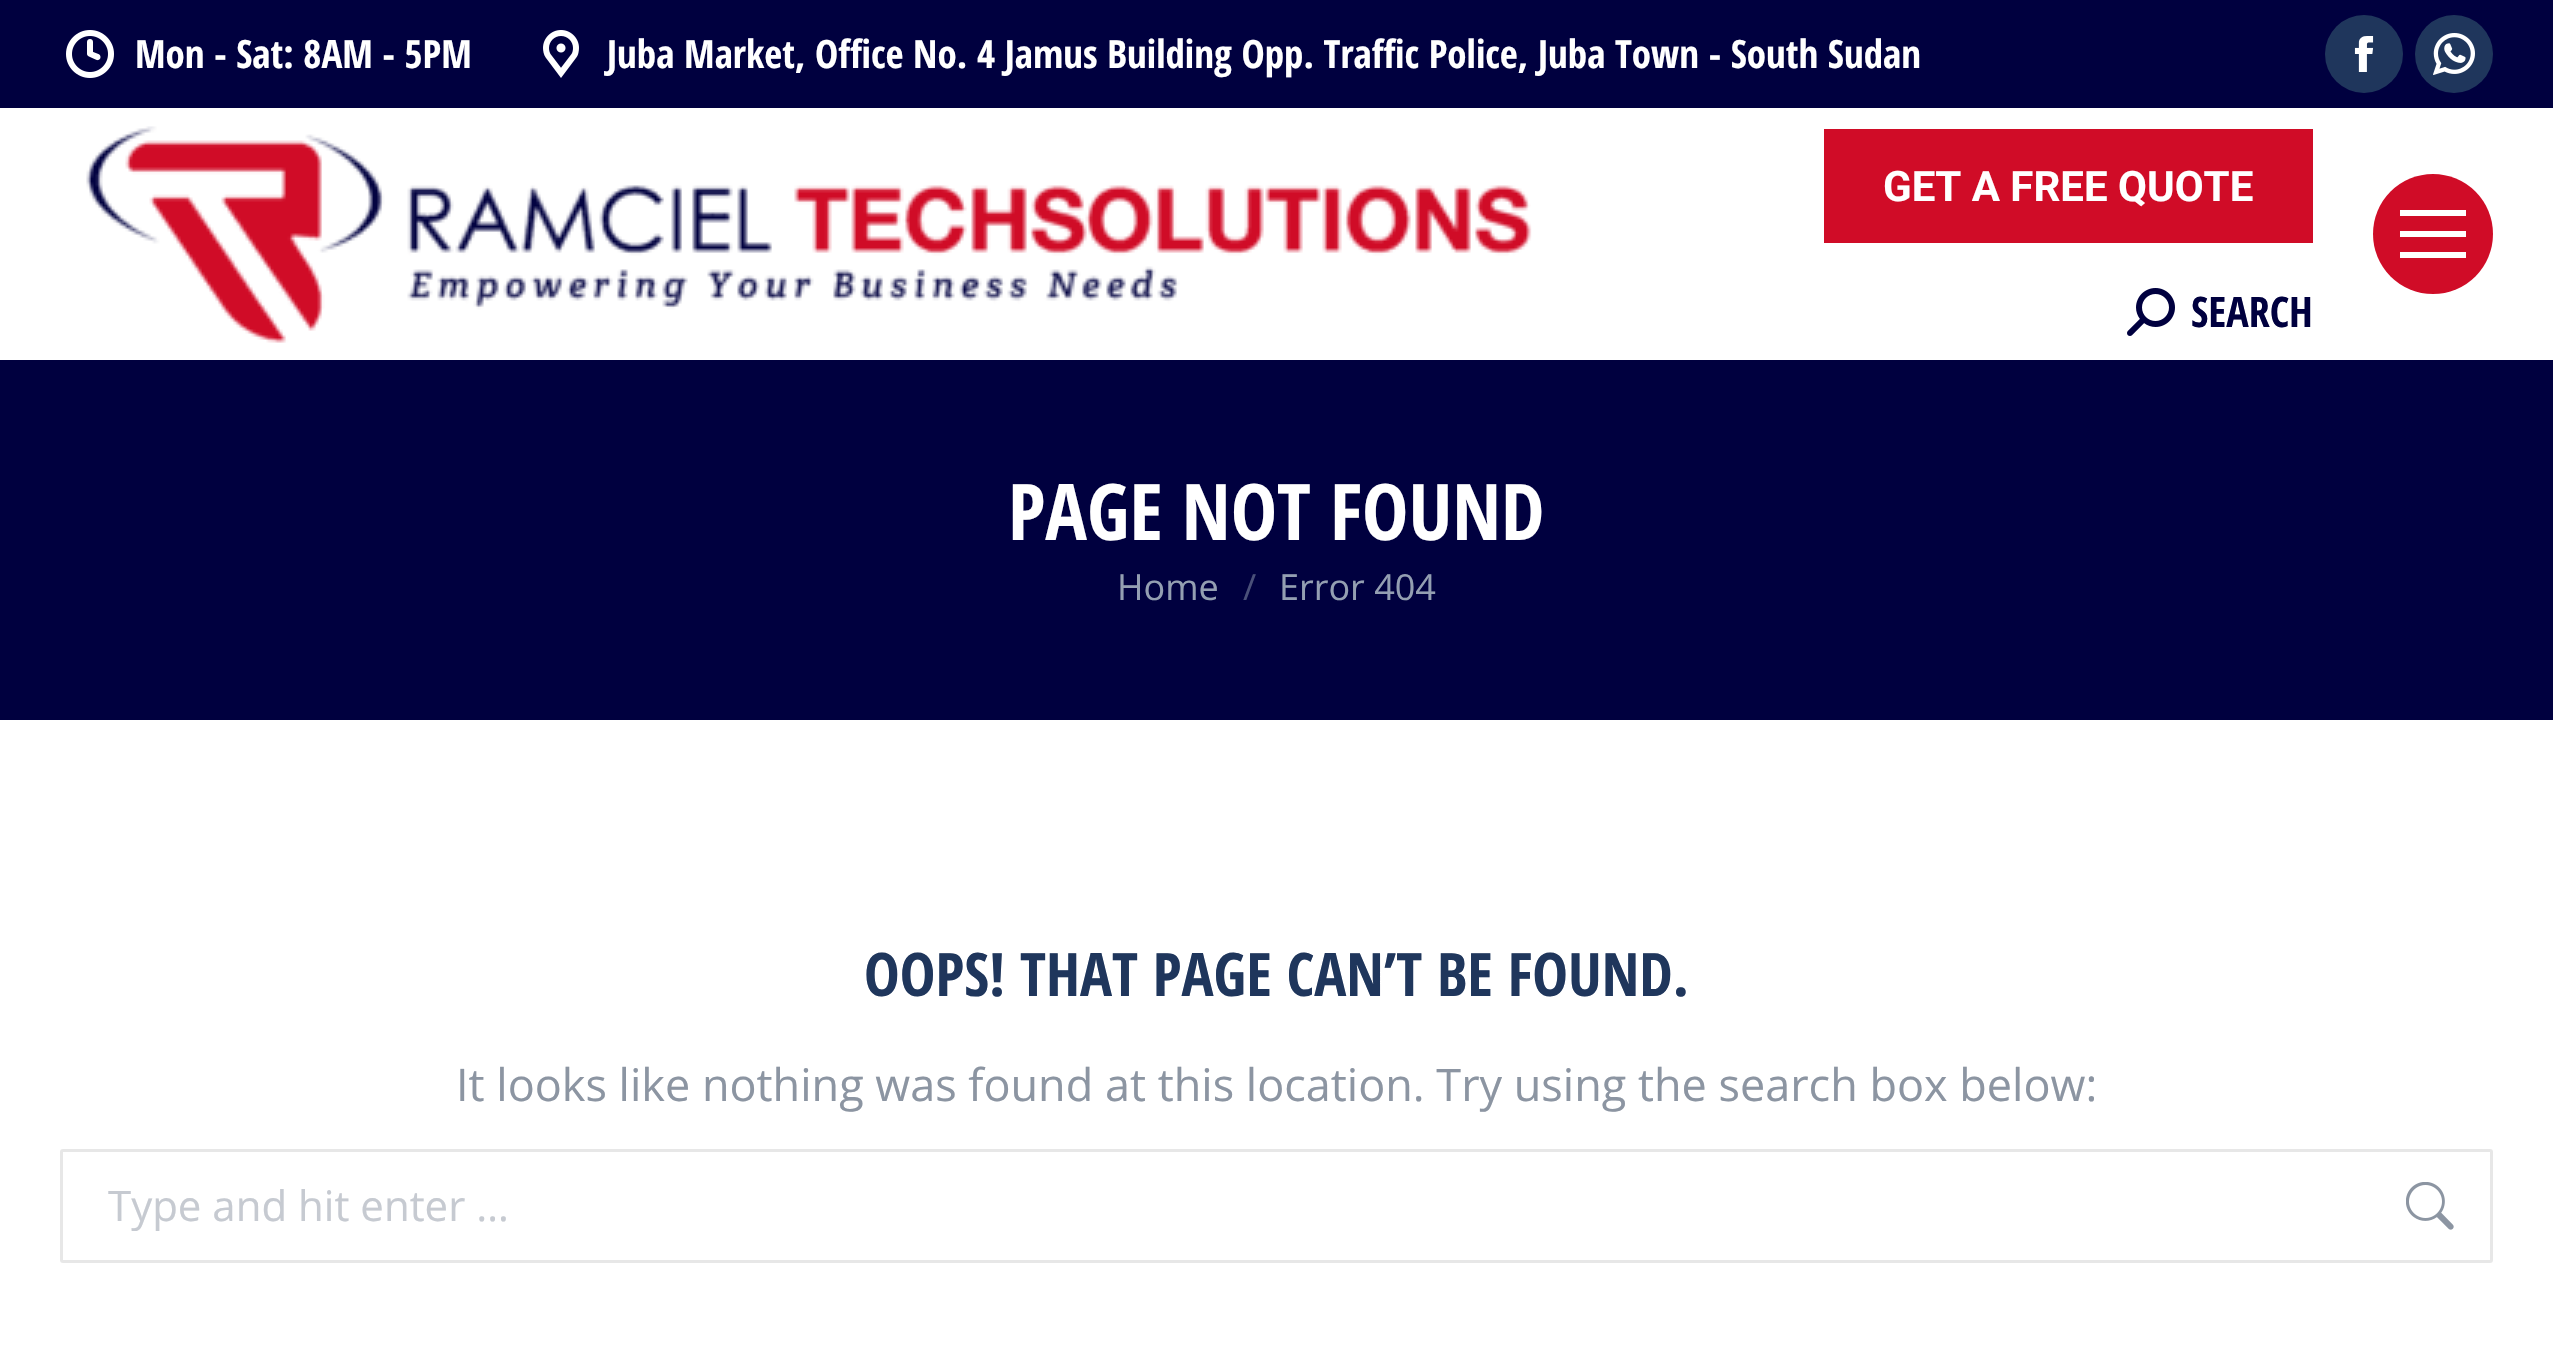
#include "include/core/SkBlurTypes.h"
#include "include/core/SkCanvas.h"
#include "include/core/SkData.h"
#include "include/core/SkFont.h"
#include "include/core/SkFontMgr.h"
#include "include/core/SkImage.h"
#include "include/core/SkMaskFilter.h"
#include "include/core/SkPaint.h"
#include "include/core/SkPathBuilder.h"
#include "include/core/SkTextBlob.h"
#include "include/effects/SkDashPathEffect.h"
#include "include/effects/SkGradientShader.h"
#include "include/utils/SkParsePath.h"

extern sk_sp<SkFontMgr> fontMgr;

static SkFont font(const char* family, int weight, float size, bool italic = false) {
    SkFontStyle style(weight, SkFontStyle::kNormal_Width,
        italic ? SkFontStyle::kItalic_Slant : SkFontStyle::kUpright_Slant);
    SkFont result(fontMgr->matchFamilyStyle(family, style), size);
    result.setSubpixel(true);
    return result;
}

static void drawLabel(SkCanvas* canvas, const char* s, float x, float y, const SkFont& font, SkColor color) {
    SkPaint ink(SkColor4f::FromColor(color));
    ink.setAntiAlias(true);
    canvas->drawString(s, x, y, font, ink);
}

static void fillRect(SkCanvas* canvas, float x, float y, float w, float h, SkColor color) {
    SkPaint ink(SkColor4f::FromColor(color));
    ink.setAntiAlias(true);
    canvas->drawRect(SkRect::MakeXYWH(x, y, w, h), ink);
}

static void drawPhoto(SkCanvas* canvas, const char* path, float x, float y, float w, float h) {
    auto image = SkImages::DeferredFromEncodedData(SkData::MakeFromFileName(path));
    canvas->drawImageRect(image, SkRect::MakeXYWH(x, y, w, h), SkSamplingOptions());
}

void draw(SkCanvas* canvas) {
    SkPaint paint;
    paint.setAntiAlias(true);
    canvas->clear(0xFFFFFFFF);
    fillRect(canvas, 0, 0, 2553, 108, 0xFF00003F);
    drawPhoto(canvas, "assets/img1.png", 66, 30, 48, 48);
    SkFont font1 = font("Open Sans Condensed", 700, 39);
    drawLabel(canvas, "Mon - Sat: 8AM - 5PM", 135, 68, font1, 0xFFFFFFFF);
    drawPhoto(canvas, "assets/img2.png", 543, 30, 36, 48);
    drawLabel(canvas, "Juba Market, Office No. 4 Jamus Building Opp. Traffic Police, Juba Town - South Sudan", 607, 68, font1, 0xFFFFFFFF);
    paint.setColor(0xFF1F365C);
    canvas->drawCircle(2364, 54, 39, paint);
    drawPhoto(canvas, "assets/img3.png", 2354, 36, 20, 36);
    canvas->drawCircle(2454, 54, 39, paint);
    drawPhoto(canvas, "assets/img4.png", 2433, 33, 42, 42);
    drawPhoto(canvas, "assets/img5.png", 86, 126, 1446, 217);
    fillRect(canvas, 1824, 129, 489, 114, 0xFFD00C27);
    SkFont font2 = font("Roboto", 700, 42);
    drawLabel(canvas, "GET A FREE QUOTE", 1883, 201, font2, 0xFFFFFFFF);
    drawPhoto(canvas, "assets/img6.png", 2127, 288, 48, 48);
    SkFont font3 = font("Open Sans Condensed", 700, 42);
    drawLabel(canvas, "SEARCH", 2191, 327, font3, 0xFF00003F);
    paint.setColor(0xFFD00C27);
    canvas->drawCircle(2433, 234, 60, paint);
    fillRect(canvas, 2400, 210, 66, 6, 0xFFFFFFFF);
    fillRect(canvas, 2400, 231, 66, 6, 0xFFFFFFFF);
    fillRect(canvas, 2400, 252, 66, 6, 0xFFFFFFFF);
    fillRect(canvas, 0, 360, 2553, 360, 0xFF00003F);
    SkFont font4 = font("Open Sans Condensed", 700, 78);
    drawLabel(canvas, "PAGE NOT FOUND", 1008, 540, font4, 0xFFFFFFFF);
    SkFont font5 = font("Open Sans", 400, 36);
    drawLabel(canvas, "Home", 1117, 600, font5, 0xFF949FB2);
    drawLabel(canvas, "/", 1243, 600, font5, 0xFF4A5079);
    drawLabel(canvas, "Error 404", 1279, 600, font5, 0xFF949FB2);
    SkFont font6 = font("Open Sans Condensed", 700, 60);
    drawLabel(canvas, "OOPS! THAT PAGE CAN’T BE FOUND.", 864, 996, font6, 0xFF1F365C);
    SkFont font7 = font("Open Sans", 400, 45);
    drawLabel(canvas, "It looks like nothing was found at this location. Try using the search box below:", 456, 1101, font7, 0xFF8C95A2);
    paint.setStroke(true);
    paint.setStrokeWidth(3);
    paint.setColor(0xFFE7E7E7);
    canvas->drawRoundRect(SkRect::MakeXYWH(61.5f, 1150.5f, 2430, 111), 1.5f, 1.5f, paint);
    SkFont font8 = font("Open Sans", 400, 42);
    drawLabel(canvas, "Type and hit enter …", 108, 1221, font8, 0xFFC6CAD1);
    drawPhoto(canvas, "assets/img7.png", 2406, 1182, 48, 48);
}
